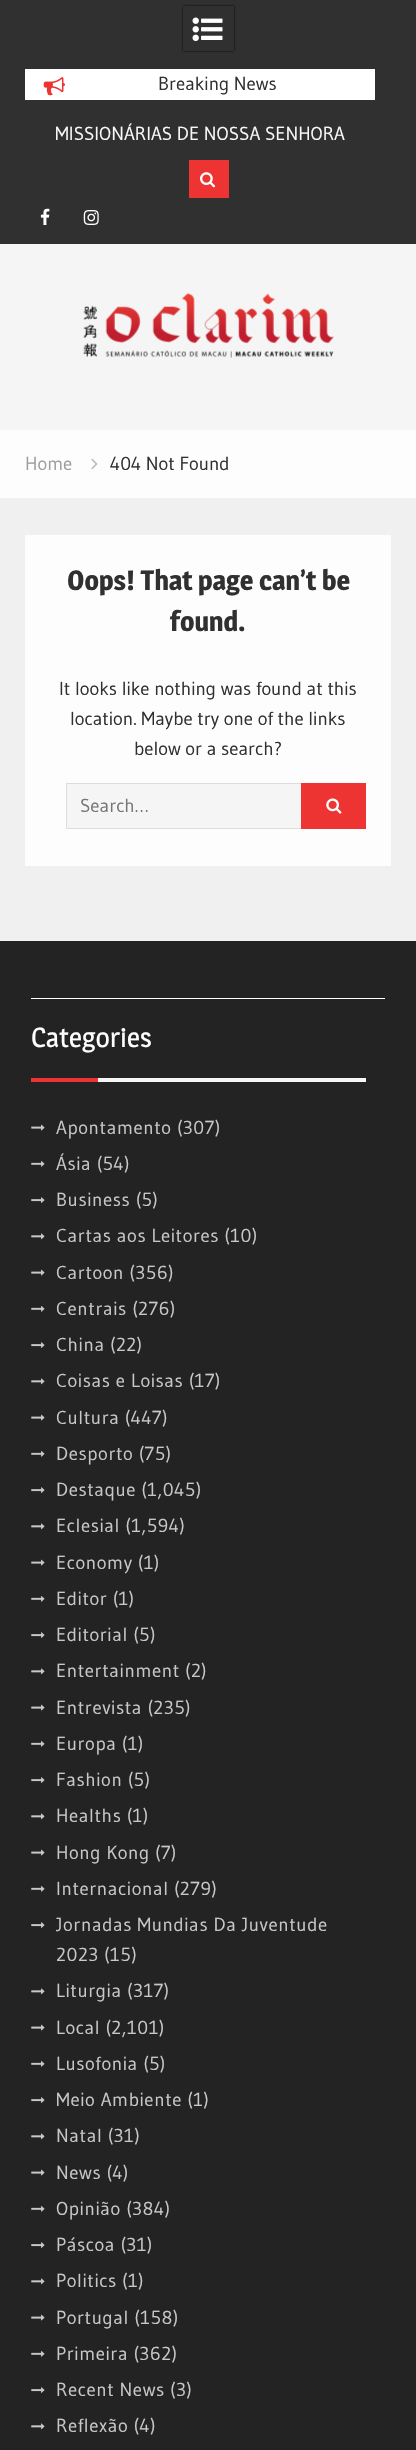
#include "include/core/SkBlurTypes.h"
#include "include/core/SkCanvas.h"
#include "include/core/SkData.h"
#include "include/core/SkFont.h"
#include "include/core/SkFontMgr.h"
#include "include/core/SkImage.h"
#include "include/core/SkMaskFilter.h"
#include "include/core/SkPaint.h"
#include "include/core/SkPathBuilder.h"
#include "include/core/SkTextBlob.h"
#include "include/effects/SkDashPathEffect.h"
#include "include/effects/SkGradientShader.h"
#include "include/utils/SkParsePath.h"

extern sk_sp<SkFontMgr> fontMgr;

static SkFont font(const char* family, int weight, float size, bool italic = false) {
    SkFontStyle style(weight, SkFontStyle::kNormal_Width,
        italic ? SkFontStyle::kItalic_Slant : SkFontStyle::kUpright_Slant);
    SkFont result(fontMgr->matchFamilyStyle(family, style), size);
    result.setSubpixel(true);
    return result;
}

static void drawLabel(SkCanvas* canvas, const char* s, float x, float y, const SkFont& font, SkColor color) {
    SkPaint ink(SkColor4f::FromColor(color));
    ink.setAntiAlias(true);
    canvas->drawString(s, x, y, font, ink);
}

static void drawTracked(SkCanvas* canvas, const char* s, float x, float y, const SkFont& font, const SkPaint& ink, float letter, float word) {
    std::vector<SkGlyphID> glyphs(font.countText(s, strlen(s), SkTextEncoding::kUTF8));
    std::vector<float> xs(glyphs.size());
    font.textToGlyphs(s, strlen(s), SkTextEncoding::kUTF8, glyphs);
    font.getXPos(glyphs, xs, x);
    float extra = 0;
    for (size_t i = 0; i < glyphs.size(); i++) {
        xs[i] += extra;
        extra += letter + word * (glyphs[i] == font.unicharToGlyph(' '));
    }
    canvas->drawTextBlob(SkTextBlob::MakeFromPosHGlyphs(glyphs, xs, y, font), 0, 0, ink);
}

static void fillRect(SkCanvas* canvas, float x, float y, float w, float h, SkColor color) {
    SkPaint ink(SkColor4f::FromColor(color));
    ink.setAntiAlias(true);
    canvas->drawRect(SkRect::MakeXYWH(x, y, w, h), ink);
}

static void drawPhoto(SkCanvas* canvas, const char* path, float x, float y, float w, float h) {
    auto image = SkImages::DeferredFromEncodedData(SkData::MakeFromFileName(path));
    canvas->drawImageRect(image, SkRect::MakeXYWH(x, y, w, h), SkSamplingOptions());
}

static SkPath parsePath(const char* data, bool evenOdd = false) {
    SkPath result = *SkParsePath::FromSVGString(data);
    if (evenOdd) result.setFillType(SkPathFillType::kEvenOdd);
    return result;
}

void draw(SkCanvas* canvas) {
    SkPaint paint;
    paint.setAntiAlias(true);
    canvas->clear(0xFFF1F0F0);
    fillRect(canvas, 0, 0, 416, 244, 0xFF303030);
    fillRect(canvas, 25, 69, 350, 31, 0xFFFFFFFF);
    drawPhoto(canvas, "assets/img1.png", 43, 77, 22, 19);
    SkFont font1 = font("Gudea", 400, 18.75f);
    drawLabel(canvas, "Breaking News", 158, 90, font1, 0xFF303030);
    drawLabel(canvas, "MISSIONÁRIAS DE NOSSA SENHORA", 55, 140, font1, 0xFFF9F9F9);
    fillRect(canvas, 189, 160, 40, 38, 0xFFEE3333);
    drawPhoto(canvas, "assets/img2.png", 200, 172, 16, 16);
    drawPhoto(canvas, "assets/img3.png", 40, 208, 10, 17);
    drawPhoto(canvas, "assets/img4.png", 83, 210, 16, 15);
    canvas->save();
    canvas->clipPath(parsePath("M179 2H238V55H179ZM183 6H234V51H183Z", true), true);
    paint.setColor(0xFF000000);
    paint.setMaskFilter(SkMaskFilter::MakeBlur(kNormal_SkBlurStyle, 1));
    canvas->drawRect(SkRect::MakeXYWH(183, 6, 51, 45), paint);
    paint.setMaskFilter(nullptr);
    canvas->restore();
    drawPhoto(canvas, "assets/img5.png", 192, 17, 31, 25);
    fillRect(canvas, 0, 244, 416, 186, 0xFFF5F5F5);
    drawPhoto(canvas, "assets/img6.png", 83, 293, 251, 65);
    fillRect(canvas, 0, 430, 416, 68, 0xFFFDFDFD);
    drawLabel(canvas, "Home", 25, 470, font1, 0xFFA29A9A);
    drawPhoto(canvas, "assets/img7.png", 91, 458, 7, 12);
    drawLabel(canvas, "404 Not Found", 110, 470, font1, 0xFF303030);
    fillRect(canvas, 25, 535, 366, 331, 0xFFFDFDFD);
    SkFont font2 = font("Magra", 700, 27.5f);
    drawLabel(canvas, "Oops! That page can’t be", 67, 590, font2, 0xFF303030);
    drawLabel(canvas, "found.", 170, 631, font2, 0xFF303030);
    drawLabel(canvas, "It looks like nothing was found at this", 59, 695, font1, 0xFF303030);
    drawLabel(canvas, "location. Maybe try one of the links", 70, 725, font1, 0xFF303030);
    drawLabel(canvas, "below or a search?", 134, 755, font1, 0xFF303030);
    fillRect(canvas, 67, 784, 234, 44, 0xFFF5F5F5);
    paint.setStroke(true);
    paint.setStrokeWidth(1);
    paint.setColor(0xFFDDDDDD);
    canvas->drawRect(SkRect::MakeXYWH(66.5f, 783.5f, 283, 45), paint);
    drawLabel(canvas, "Search…", 80, 812, font1, 0xFF757575);
    fillRect(canvas, 301, 783, 65, 46, 0xFFEE3333);
    drawPhoto(canvas, "assets/img8.png", 326, 798, 16, 16);
    fillRect(canvas, 0, 941, 416, 1509, 0xFF232323);
    fillRect(canvas, 31, 998, 354, 1, 0xFFFFFFFF);
    fillRect(canvas, 98, 1078, 268, 4, 0xFFF6F6F6);
    SkFont font3 = font("Magra", 400, 27.5f);
    drawLabel(canvas, "Categories", 31, 1047, font3, 0xFFFFFFFF);
    fillRect(canvas, 31, 1078, 67, 4, 0xFFEE3333);
    drawPhoto(canvas, "assets/img9.png", 31, 1124, 14, 7);
    paint.setStroke(false);
    paint.setColor(0xFFC8C8C8);
    drawTracked(canvas, "Apontamento (307)", 56, 1134, font1, paint, 0.6f, 0);
    drawPhoto(canvas, "assets/img10.png", 31, 1161, 14, 6);
    drawTracked(canvas, "Ásia (54)", 56, 1170, font1, paint, 0.6f, 0);
    drawPhoto(canvas, "assets/img11.png", 31, 1197, 14, 6);
    drawTracked(canvas, "Business (5)", 56, 1206, font1, paint, 0.6f, 0);
    drawPhoto(canvas, "assets/img12.png", 31, 1233, 14, 7);
    drawTracked(canvas, "Cartas aos Leitores (10)", 56, 1242, font1, paint, 0.6f, 0);
    drawPhoto(canvas, "assets/img9.png", 31, 1269, 14, 7);
    drawTracked(canvas, "Cartoon (356)", 56, 1279, font1, paint, 0.6f, 0);
    drawPhoto(canvas, "assets/img10.png", 31, 1306, 14, 6);
    drawTracked(canvas, "Centrais (276)", 56, 1315, font1, paint, 0.6f, 0);
    drawPhoto(canvas, "assets/img11.png", 31, 1342, 14, 6);
    drawTracked(canvas, "China (22)", 56, 1351, font1, paint, 0.6f, 0);
    drawPhoto(canvas, "assets/img12.png", 31, 1378, 14, 7);
    drawTracked(canvas, "Coisas e Loisas (17)", 56, 1387, font1, paint, 0.6f, 0);
    drawPhoto(canvas, "assets/img9.png", 31, 1414, 14, 7);
    drawTracked(canvas, "Cultura (447)", 56, 1424, font1, paint, 0.6f, 0);
    drawPhoto(canvas, "assets/img10.png", 31, 1451, 14, 6);
    drawTracked(canvas, "Desporto (75)", 56, 1460, font1, paint, 0.6f, 0);
    drawPhoto(canvas, "assets/img11.png", 31, 1487, 14, 6);
    drawTracked(canvas, "Destaque (1,045)", 56, 1496, font1, paint, 0.6f, 0);
    drawPhoto(canvas, "assets/img12.png", 31, 1523, 14, 7);
    drawTracked(canvas, "Eclesial (1,594)", 56, 1532, font1, paint, 0.6f, 0);
    drawPhoto(canvas, "assets/img9.png", 31, 1559, 14, 7);
    drawTracked(canvas, "Economy (1)", 56, 1569, font1, paint, 0.6f, 0);
    drawPhoto(canvas, "assets/img10.png", 31, 1596, 14, 6);
    drawTracked(canvas, "Editor (1)", 56, 1605, font1, paint, 0.6f, 0);
    drawPhoto(canvas, "assets/img11.png", 31, 1632, 14, 6);
    drawTracked(canvas, "Editorial (5)", 56, 1641, font1, paint, 0.6f, 0);
    drawPhoto(canvas, "assets/img12.png", 31, 1668, 14, 7);
    drawTracked(canvas, "Entertainment (2)", 56, 1677, font1, paint, 0.6f, 0);
    drawPhoto(canvas, "assets/img9.png", 31, 1704, 14, 7);
    drawTracked(canvas, "Entrevista (235)", 56, 1714, font1, paint, 0.6f, 0);
    drawPhoto(canvas, "assets/img10.png", 31, 1741, 14, 6);
    drawTracked(canvas, "Europa (1)", 56, 1750, font1, paint, 0.6f, 0);
    drawPhoto(canvas, "assets/img11.png", 31, 1777, 14, 6);
    drawTracked(canvas, "Fashion (5)", 56, 1786, font1, paint, 0.6f, 0);
    drawPhoto(canvas, "assets/img12.png", 31, 1813, 14, 7);
    drawTracked(canvas, "Healths (1)", 56, 1822, font1, paint, 0.6f, 0);
    drawPhoto(canvas, "assets/img9.png", 31, 1849, 14, 7);
    drawTracked(canvas, "Hong Kong (7)", 56, 1859, font1, paint, 0.6f, 0);
    drawPhoto(canvas, "assets/img10.png", 31, 1886, 14, 6);
    drawTracked(canvas, "Internacional (279)", 56, 1895, font1, paint, 0.6f, 0);
    drawPhoto(canvas, "assets/img11.png", 31, 1922, 14, 6);
    drawTracked(canvas, "Jornadas Mundias Da Juventude", 56, 1931, font1, paint, 0.6f, 0);
    drawTracked(canvas, "2023 (15)", 56, 1961, font1, paint, 0.6f, 0);
    drawPhoto(canvas, "assets/img12.png", 31, 1988, 14, 7);
    drawTracked(canvas, "Liturgia (317)", 56, 1997, font1, paint, 0.6f, 0);
    drawPhoto(canvas, "assets/img9.png", 31, 2024, 14, 7);
    drawTracked(canvas, "Local (2,101)", 56, 2034, font1, paint, 0.6f, 0);
    drawPhoto(canvas, "assets/img10.png", 31, 2061, 14, 6);
    drawTracked(canvas, "Lusofonia (5)", 56, 2070, font1, paint, 0.6f, 0);
    drawPhoto(canvas, "assets/img11.png", 31, 2097, 14, 6);
    drawTracked(canvas, "Meio Ambiente (1)", 56, 2106, font1, paint, 0.6f, 0);
    drawPhoto(canvas, "assets/img12.png", 31, 2133, 14, 7);
    drawTracked(canvas, "Natal (31)", 56, 2142, font1, paint, 0.6f, 0);
    drawPhoto(canvas, "assets/img9.png", 31, 2169, 14, 7);
    drawTracked(canvas, "News (4)", 56, 2179, font1, paint, 0.6f, 0);
    drawPhoto(canvas, "assets/img10.png", 31, 2206, 14, 6);
    drawTracked(canvas, "Opinião (384)", 56, 2215, font1, paint, 0.6f, 0);
    drawPhoto(canvas, "assets/img11.png", 31, 2242, 14, 6);
    drawTracked(canvas, "Páscoa (31)", 56, 2251, font1, paint, 0.6f, 0);
    drawPhoto(canvas, "assets/img12.png", 31, 2278, 14, 7);
    drawTracked(canvas, "Politics (1)", 56, 2287, font1, paint, 0.6f, 0);
    drawPhoto(canvas, "assets/img9.png", 31, 2314, 14, 7);
    drawTracked(canvas, "Portugal (158)", 56, 2324, font1, paint, 0.6f, 0);
    drawPhoto(canvas, "assets/img10.png", 31, 2351, 14, 6);
    drawTracked(canvas, "Primeira (362)", 56, 2360, font1, paint, 0.6f, 0);
    drawPhoto(canvas, "assets/img11.png", 31, 2387, 14, 6);
    drawTracked(canvas, "Recent News (3)", 56, 2396, font1, paint, 0.6f, 0);
    drawPhoto(canvas, "assets/img12.png", 31, 2423, 14, 7);
    drawTracked(canvas, "Reflexão (4)", 56, 2432, font1, paint, 0.6f, 0);
}
